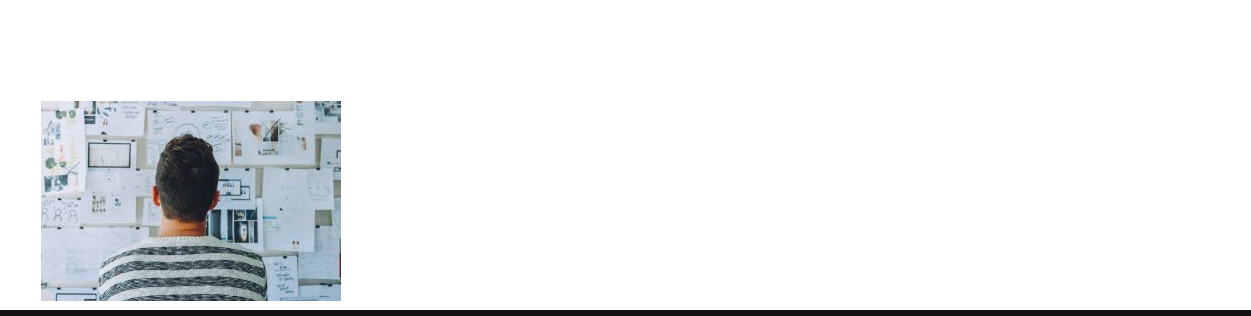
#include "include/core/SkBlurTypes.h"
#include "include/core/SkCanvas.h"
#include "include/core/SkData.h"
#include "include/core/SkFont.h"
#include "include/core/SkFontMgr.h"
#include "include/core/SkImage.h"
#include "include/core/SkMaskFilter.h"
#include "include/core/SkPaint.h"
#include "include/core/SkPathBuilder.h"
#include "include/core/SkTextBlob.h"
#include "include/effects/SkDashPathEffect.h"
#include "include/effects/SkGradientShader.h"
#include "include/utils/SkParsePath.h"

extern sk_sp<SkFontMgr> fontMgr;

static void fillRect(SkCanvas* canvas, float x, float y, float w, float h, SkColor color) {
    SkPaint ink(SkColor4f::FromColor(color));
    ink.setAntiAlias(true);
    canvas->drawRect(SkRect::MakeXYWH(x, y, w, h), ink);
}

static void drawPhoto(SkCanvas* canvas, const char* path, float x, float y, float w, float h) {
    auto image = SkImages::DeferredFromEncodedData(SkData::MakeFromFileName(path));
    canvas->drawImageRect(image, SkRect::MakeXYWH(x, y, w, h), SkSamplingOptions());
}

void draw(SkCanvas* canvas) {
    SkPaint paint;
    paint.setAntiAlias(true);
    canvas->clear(0xFFFFFFFF);
    drawPhoto(canvas, "assets/img1.png", 41, 101, 300, 200);
    fillRect(canvas, 0, 310, 1251, 6, 0xFF141414);
}
